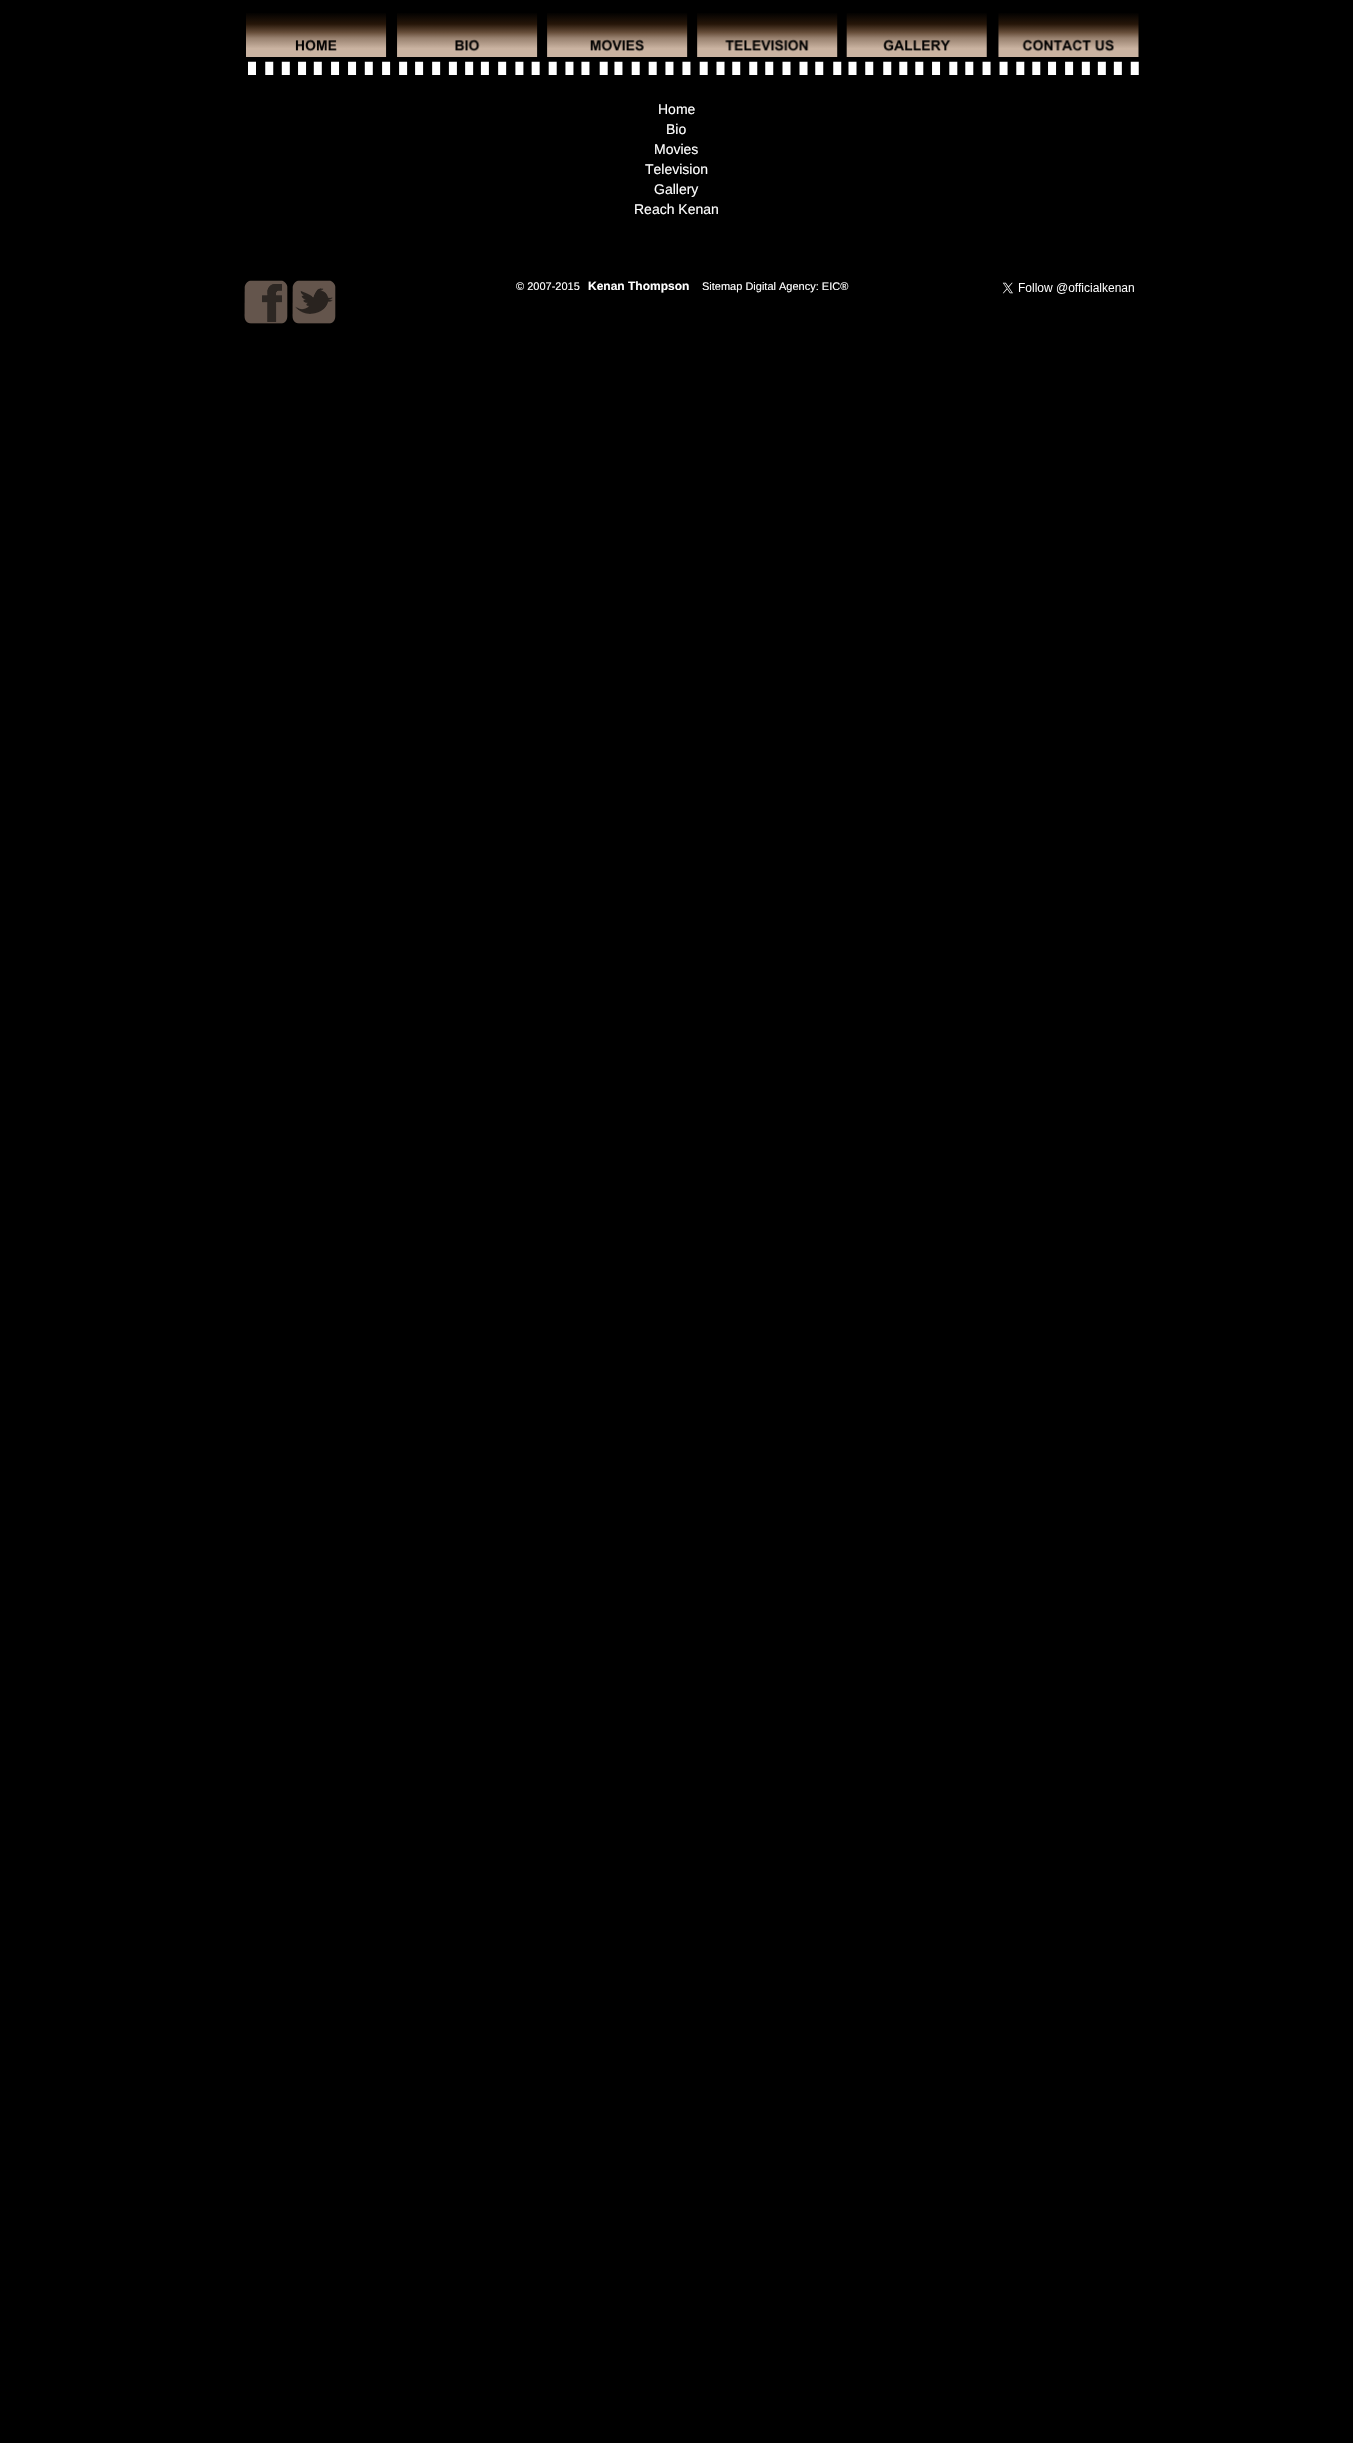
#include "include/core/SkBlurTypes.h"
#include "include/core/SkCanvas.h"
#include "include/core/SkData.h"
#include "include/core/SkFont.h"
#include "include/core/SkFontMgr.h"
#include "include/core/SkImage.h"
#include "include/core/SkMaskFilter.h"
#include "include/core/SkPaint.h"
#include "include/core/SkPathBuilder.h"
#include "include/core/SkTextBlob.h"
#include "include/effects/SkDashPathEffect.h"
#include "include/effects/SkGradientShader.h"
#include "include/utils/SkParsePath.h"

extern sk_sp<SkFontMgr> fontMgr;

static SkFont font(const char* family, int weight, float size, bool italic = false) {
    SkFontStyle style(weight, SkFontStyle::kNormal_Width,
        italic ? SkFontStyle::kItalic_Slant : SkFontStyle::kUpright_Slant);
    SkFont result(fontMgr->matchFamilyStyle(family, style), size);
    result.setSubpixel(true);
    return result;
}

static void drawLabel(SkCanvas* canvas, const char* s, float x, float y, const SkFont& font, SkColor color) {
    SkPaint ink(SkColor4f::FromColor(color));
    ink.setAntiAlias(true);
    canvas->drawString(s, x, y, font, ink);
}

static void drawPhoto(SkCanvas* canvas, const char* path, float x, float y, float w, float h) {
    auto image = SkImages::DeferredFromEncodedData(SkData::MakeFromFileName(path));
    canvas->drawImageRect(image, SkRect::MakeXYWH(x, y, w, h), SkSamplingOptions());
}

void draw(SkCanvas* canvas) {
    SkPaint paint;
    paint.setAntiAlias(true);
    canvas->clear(0xFF000000);
    drawPhoto(canvas, "assets/img1.png", 246, 13, 893, 62);
    SkFont font1 = font("Liberation Sans", 400, 14);
    drawLabel(canvas, "Home", 658, 114, font1, 0xFFFFFFFF);
    drawLabel(canvas, "Bio", 666, 134, font1, 0xFFFFFFFF);
    drawLabel(canvas, "Movies", 654, 154, font1, 0xFFFFFFFF);
    drawLabel(canvas, "Television", 645, 174, font1, 0xFFFFFFFF);
    drawLabel(canvas, "Gallery", 654, 194, font1, 0xFFFFFFFF);
    drawLabel(canvas, "Reach Kenan", 634, 214, font1, 0xFFFFFFFF);
    drawPhoto(canvas, "assets/img2.png", 244, 280, 44, 44);
    drawPhoto(canvas, "assets/img3.png", 292, 280, 44, 44);
    SkFont font2 = font("Liberation Sans", 400, 11);
    drawLabel(canvas, "© 2007-2015", 516, 290, font2, 0xFFFFFFFF);
    SkFont font3 = font("Liberation Sans", 700, 12);
    drawLabel(canvas, "Kenan Thompson", 588, 290, font3, 0xFFFFFFFF);
    drawLabel(canvas, "Sitemap Digital Agency: EIC®", 702, 290, font2, 0xFFFFFFFF);
    drawPhoto(canvas, "assets/img4.png", 1002, 282, 132, 12);
}
